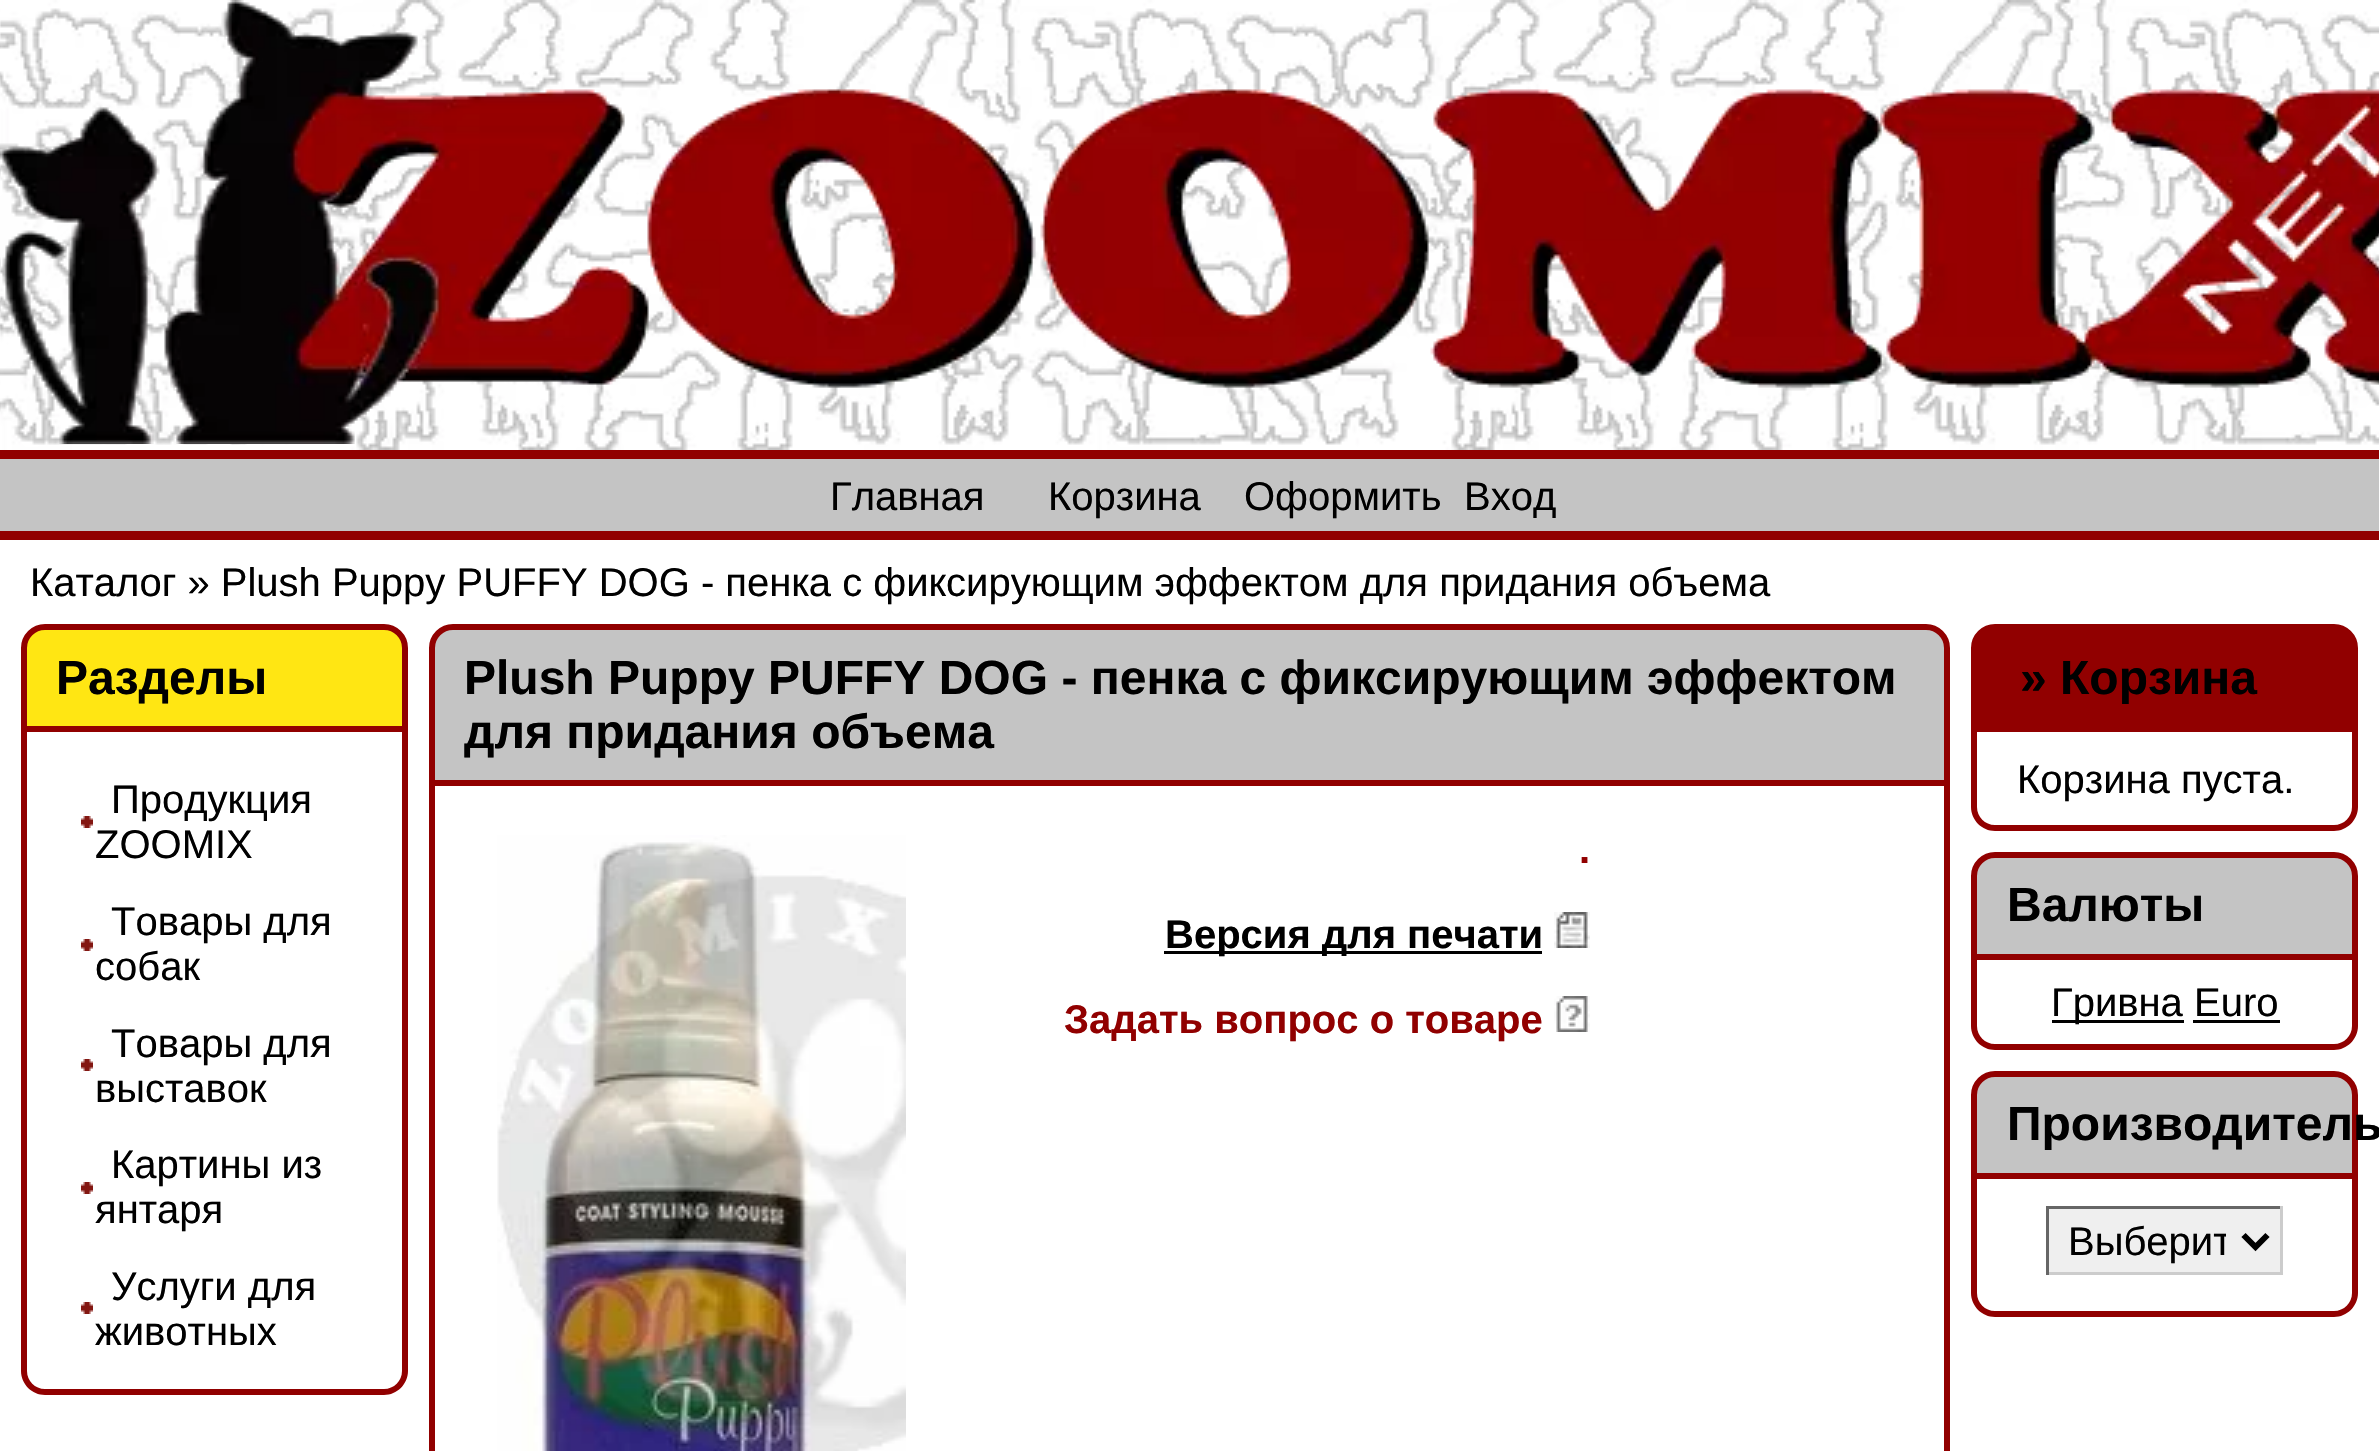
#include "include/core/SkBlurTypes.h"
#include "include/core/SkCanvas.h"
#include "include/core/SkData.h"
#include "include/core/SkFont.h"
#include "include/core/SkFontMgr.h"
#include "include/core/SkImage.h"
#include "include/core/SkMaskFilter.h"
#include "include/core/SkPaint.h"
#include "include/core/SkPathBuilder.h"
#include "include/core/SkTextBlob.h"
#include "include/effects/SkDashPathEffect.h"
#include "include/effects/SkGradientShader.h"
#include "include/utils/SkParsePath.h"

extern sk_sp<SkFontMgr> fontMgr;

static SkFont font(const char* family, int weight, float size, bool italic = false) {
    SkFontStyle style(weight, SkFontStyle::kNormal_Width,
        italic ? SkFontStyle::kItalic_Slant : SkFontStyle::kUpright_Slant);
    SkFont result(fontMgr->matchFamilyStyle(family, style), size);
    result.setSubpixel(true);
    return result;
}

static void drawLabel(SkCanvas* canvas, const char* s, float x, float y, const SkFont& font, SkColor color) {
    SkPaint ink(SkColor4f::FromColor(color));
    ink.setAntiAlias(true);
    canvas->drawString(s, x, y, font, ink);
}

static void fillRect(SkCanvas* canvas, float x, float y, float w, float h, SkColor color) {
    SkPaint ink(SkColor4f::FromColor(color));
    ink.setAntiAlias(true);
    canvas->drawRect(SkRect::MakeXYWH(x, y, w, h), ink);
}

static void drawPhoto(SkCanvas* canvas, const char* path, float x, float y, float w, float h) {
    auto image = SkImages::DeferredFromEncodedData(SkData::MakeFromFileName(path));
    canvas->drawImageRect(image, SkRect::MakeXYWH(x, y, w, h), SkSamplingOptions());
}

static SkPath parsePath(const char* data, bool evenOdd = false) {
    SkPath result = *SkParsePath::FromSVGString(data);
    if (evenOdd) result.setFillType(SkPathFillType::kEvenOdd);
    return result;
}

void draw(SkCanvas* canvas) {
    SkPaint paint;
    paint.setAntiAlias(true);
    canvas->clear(0xFFFFFFFF);
    drawPhoto(canvas, "assets/img1.png", 0, 0, 2379, 450);
    drawPhoto(canvas, "assets/img2.png", 0, 0, 2379, 444);
    fillRect(canvas, 0, 459, 2379, 72, 0xFFC4C4C4);
    fillRect(canvas, 0, 450, 2379, 9, 0xFF910000);
    fillRect(canvas, 0, 531, 2379, 9, 0xFF910000);
    SkFont font1 = font("Liberation Sans", 400, 40);
    drawLabel(canvas, "Главная", 830, 510, font1, 0xFF000000);
    drawLabel(canvas, "Корзина", 1048, 510, font1, 0xFF000000);
    drawLabel(canvas, "Оформить", 1244, 510, font1, 0xFF000000);
    drawLabel(canvas, "Вход", 1464, 510, font1, 0xFF000000);
    drawLabel(canvas, "Каталог » Plush Puppy PUFFY DOG - пенка с фиксирующим эффектом для придания объема", 30, 596, font1, 0xFF000000);
    paint.setColor(0xFFFFE613);
    canvas->drawPath(parsePath("M45 627H384C395.5 627 405 636.5 405 648V729H24V648C24 636.5 33.5 627 45 627Z"), paint);
    paint.setStroke(true);
    paint.setStrokeWidth(6);
    paint.setColor(0xFF910000);
    canvas->drawPath(parsePath("M45 627H384C395.5 627 405 636.5 405 648V729H24V648C24 636.5 33.5 627 45 627Z"), paint);
    SkFont font2 = font("Liberation Sans", 700, 48);
    drawLabel(canvas, "Разделы", 56, 694, font2, 0xFF000000);
    paint.setStroke(false);
    canvas->drawPath(parsePath("M21 732H408V1371C408 1384 397 1395 384 1395H45C32 1395 21 1384 21 1371ZM27 732H402V1371C402 1381 394 1389 384 1389H45C35 1389 27 1381 27 1371Z", true), paint);
    drawPhoto(canvas, "assets/img3.png", 81, 816, 12, 12);
    drawLabel(canvas, "Продукция", 111, 813, font1, 0xFF000000);
    drawLabel(canvas, "ZOOMIX", 95, 858, font1, 0xFF000000);
    drawPhoto(canvas, "assets/img3.png", 81, 939, 12, 12);
    drawLabel(canvas, "Товары для", 111, 935, font1, 0xFF000000);
    drawLabel(canvas, "собак", 95, 980, font1, 0xFF000000);
    drawPhoto(canvas, "assets/img3.png", 81, 1059, 12, 12);
    drawLabel(canvas, "Товары для", 111, 1057, font1, 0xFF000000);
    drawLabel(canvas, "выставок", 95, 1102, font1, 0xFF000000);
    drawPhoto(canvas, "assets/img3.png", 81, 1182, 12, 12);
    drawLabel(canvas, "Картины из", 111, 1178, font1, 0xFF000000);
    drawLabel(canvas, "янтаря", 95, 1223, font1, 0xFF000000);
    drawPhoto(canvas, "assets/img3.png", 81, 1302, 12, 12);
    drawLabel(canvas, "Услуги для", 111, 1300, font1, 0xFF000000);
    drawLabel(canvas, "животных", 95, 1345, font1, 0xFF000000);
    paint.setColor(0xFFC4C4C4);
    canvas->drawPath(parsePath("M453 627H1926C1937.5 627 1947 636.5 1947 648V783H432V648C432 636.5 441.5 627 453 627Z"), paint);
    paint.setStroke(true);
    paint.setColor(0xFF910000);
    canvas->drawPath(parsePath("M453 627H1926C1937.5 627 1947 636.5 1947 648V783H432V648C432 636.5 441.5 627 453 627Z"), paint);
    drawLabel(canvas, "Plush Puppy PUFFY DOG - пенка с фиксирующим эффектом", 464, 694, font2, 0xFF000000);
    drawLabel(canvas, "для придания объема", 464, 748, font2, 0xFF000000);
    paint.setStroke(false);
    canvas->drawPath(parsePath("M429 786H1950V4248C1950 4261 1939 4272 1926 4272H453C440 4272 429 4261 429 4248ZM435 786H1944V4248C1944 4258 1936 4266 1926 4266H453C443 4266 435 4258 435 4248Z", true), paint);
    drawPhoto(canvas, "assets/img4.png", 497, 835, 409, 616);
    SkFont font3 = font("Liberation Sans", 700, 40);
    drawLabel(canvas, ".", 1579, 863, font3, 0xFF910000);
    fillRect(canvas, 1164, 951, 378, 3, 0xFF000000);
    drawLabel(canvas, "Версия для печати", 1165, 948, font3, 0xFF000000);
    drawPhoto(canvas, "assets/img5.png", 1554, 912, 36, 36);
    drawLabel(canvas, "Задать вопрос о товаре", 1064, 1033, font3, 0xFF910000);
    drawPhoto(canvas, "assets/img6.png", 1554, 996, 36, 36);
    canvas->drawPath(parsePath("M1995 627H2334C2345.5 627 2355 636.5 2355 648V729H1974V648C1974 636.5 1983.5 627 1995 627Z"), paint);
    paint.setStroke(true);
    canvas->drawPath(parsePath("M1995 627H2334C2345.5 627 2355 636.5 2355 648V729H1974V648C1974 636.5 1983.5 627 1995 627Z"), paint);
    drawLabel(canvas, "» Корзина", 2020, 694, font2, 0xFF000000);
    paint.setStroke(false);
    canvas->drawPath(parsePath("M1971 732H2358V807C2358 820 2347 831 2334 831H1995C1982 831 1971 820 1971 807ZM1977 732H2352V807C2352 817 2344 825 2334 825H1995C1985 825 1977 817 1977 807Z", true), paint);
    drawLabel(canvas, "Корзина пуста.", 2017, 793, font1, 0xFF000000);
    paint.setColor(0xFFC4C4C4);
    canvas->drawPath(parsePath("M1995 855H2334C2345.5 855 2355 864.5 2355 876V957H1974V876C1974 864.5 1983.5 855 1995 855Z"), paint);
    paint.setStroke(true);
    paint.setColor(0xFF910000);
    canvas->drawPath(parsePath("M1995 855H2334C2345.5 855 2355 864.5 2355 876V957H1974V876C1974 864.5 1983.5 855 1995 855Z"), paint);
    drawLabel(canvas, "Валюты", 2007, 921, font2, 0xFF000000);
    paint.setStroke(false);
    canvas->drawPath(parsePath("M1971 960H2358V1026C2358 1039 2347 1050 2334 1050H1995C1982 1050 1971 1039 1971 1026ZM1977 960H2352V1026C2352 1036 2344 1044 2334 1044H1995C1985 1044 1977 1036 1977 1026Z", true), paint);
    fillRect(canvas, 2052, 1020, 132, 3, 0xFF000000);
    drawLabel(canvas, "Гривна Euro", 2051, 1016, font1, 0xFF000000);
    fillRect(canvas, 2193, 1020, 87, 3, 0xFF000000);
    paint.setColor(0xFFC4C4C4);
    canvas->drawPath(parsePath("M1995 1074H2334C2345.5 1074 2355 1083.5 2355 1095V1176H1974V1095C1974 1083.5 1983.5 1074 1995 1074Z"), paint);
    paint.setStroke(true);
    paint.setColor(0xFF910000);
    canvas->drawPath(parsePath("M1995 1074H2334C2345.5 1074 2355 1083.5 2355 1095V1176H1974V1095C1974 1083.5 1983.5 1074 1995 1074Z"), paint);
    drawLabel(canvas, "Производитель", 2007, 1140, font2, 0xFF000000);
    paint.setStroke(false);
    canvas->drawPath(parsePath("M1971 1179H2358V1293C2358 1306 2347 1317 2334 1317H1995C1982 1317 1971 1306 1971 1293ZM1977 1179H2352V1293C2352 1303 2344 1311 2334 1311H1995C1985 1311 1977 1303 1977 1293Z", true), paint);
    fillRect(canvas, 2049, 1209, 231, 63, 0xFFEFEFEF);
    fillRect(canvas, 2046, 1206, 237, 3, 0xFF666666);
    fillRect(canvas, 2280, 1206, 3, 69, 0xFFCCCCCC);
    fillRect(canvas, 2046, 1272, 237, 3, 0xFFCCCCCC);
    fillRect(canvas, 2046, 1206, 3, 69, 0xFF666666);
    paint.setStroke(true);
    paint.setColor(0xFF000000);
    canvas->drawPath(parsePath("M2243.5 1235L2255.5 1247L2267.5 1235"), paint);
    canvas->save();
    canvas->clipRect(SkRect::MakeXYWH(2067, 1215, 159, 51));
    drawLabel(canvas, "Выберит", 2068, 1255, font1, 0xFF000000);
    canvas->restore();
}
